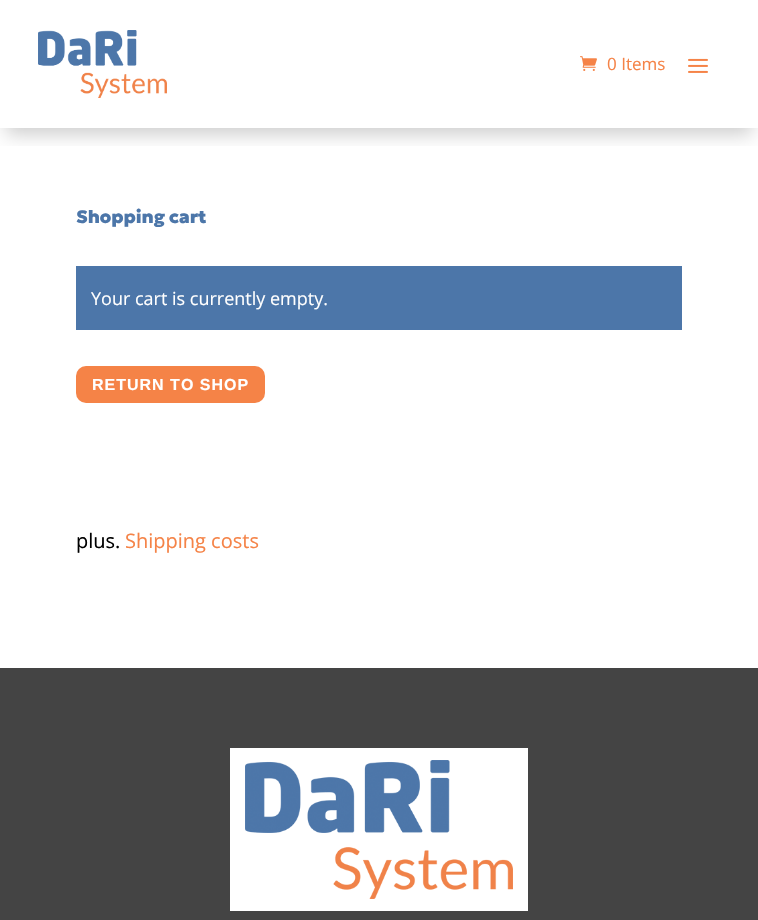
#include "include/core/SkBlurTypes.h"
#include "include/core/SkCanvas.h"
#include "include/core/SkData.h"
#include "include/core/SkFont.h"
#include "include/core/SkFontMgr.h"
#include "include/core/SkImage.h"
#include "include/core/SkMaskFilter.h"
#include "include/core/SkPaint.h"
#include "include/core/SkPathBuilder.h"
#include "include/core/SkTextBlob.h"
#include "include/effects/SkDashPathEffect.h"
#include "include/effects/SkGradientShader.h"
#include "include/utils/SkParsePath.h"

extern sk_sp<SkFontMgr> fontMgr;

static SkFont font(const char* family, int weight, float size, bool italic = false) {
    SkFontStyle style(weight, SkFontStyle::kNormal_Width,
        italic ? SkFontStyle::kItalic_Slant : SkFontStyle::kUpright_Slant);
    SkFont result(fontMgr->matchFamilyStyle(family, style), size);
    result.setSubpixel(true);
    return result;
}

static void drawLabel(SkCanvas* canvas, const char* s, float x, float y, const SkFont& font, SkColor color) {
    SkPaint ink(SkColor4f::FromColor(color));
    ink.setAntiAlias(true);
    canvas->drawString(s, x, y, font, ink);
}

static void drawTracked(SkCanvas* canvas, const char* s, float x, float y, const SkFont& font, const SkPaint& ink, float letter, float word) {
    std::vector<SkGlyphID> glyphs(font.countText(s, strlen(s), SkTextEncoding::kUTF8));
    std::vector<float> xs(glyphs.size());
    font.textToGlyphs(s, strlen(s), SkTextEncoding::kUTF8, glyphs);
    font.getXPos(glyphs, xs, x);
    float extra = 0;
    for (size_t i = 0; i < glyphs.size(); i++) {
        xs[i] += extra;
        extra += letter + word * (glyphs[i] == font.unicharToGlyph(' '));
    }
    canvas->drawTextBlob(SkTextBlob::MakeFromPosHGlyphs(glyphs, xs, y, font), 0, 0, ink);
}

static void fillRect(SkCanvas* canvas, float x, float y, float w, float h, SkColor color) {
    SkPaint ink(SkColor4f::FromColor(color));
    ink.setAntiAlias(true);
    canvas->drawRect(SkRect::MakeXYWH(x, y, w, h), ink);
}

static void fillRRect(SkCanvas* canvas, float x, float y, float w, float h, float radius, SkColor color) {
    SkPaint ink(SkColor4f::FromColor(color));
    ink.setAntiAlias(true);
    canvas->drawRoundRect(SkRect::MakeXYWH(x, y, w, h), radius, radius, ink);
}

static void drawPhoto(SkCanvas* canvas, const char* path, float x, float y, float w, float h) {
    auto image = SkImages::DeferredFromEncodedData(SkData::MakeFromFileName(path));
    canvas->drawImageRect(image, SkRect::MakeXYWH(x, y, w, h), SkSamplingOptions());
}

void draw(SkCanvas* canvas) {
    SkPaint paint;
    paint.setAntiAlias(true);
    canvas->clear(0xFFFFFFFF);
    canvas->save();
    canvas->clipRect(SkRect::MakeXYWH(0, 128, 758, 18));
    paint.setColor(0x33000000);
    paint.setMaskFilter(SkMaskFilter::MakeBlur(kNormal_SkBlurStyle, 9));
    canvas->drawRect(SkRect::MakeXYWH(6, 18, 746, 116), paint);
    paint.setMaskFilter(nullptr);
    canvas->restore();
    drawPhoto(canvas, "assets/img1.png", 38, 30, 129, 68);
    drawPhoto(canvas, "assets/img2.png", 580, 56, 17, 15);
    SkFont font1 = font("Open Sans", 400, 17);
    drawLabel(canvas, "0 Items", 607, 70, font1, 0xFFF58347);
    drawPhoto(canvas, "assets/img3.png", 688, 58, 20, 15);
    SkFont font2 = font("Geologica", 900, 18);
    drawLabel(canvas, "Shopping cart", 76, 223, font2, 0xFF4C76A9);
    fillRect(canvas, 76, 266, 606, 64, 0xFF4C76A9);
    SkFont font3 = font("Open Sans", 400, 18);
    drawLabel(canvas, "Your cart is currently empty.", 91, 305, font3, 0xFFFFFFFF);
    fillRRect(canvas, 76, 366, 189, 37, 10, 0xFFF58347);
    SkFont font4 = font("Liberation Sans", 700, 16);
    paint.setColor(0xFFFFFFFF);
    drawTracked(canvas, "RETURN TO SHOP", 92, 390, font4, paint, 1, 0);
    SkFont font5 = font("Open Sans", 400, 20);
    drawLabel(canvas, "plus.", 76, 548, font5, 0xFF000000);
    drawLabel(canvas, "Shipping costs", 125, 548, font5, 0xFFF58347);
    fillRect(canvas, 0, 668, 758, 252, 0xFF444444);
    fillRect(canvas, 230, 748, 298, 163, 0xFFFFFFFF);
    drawPhoto(canvas, "assets/img4.png", 245, 760, 268, 139);
}
